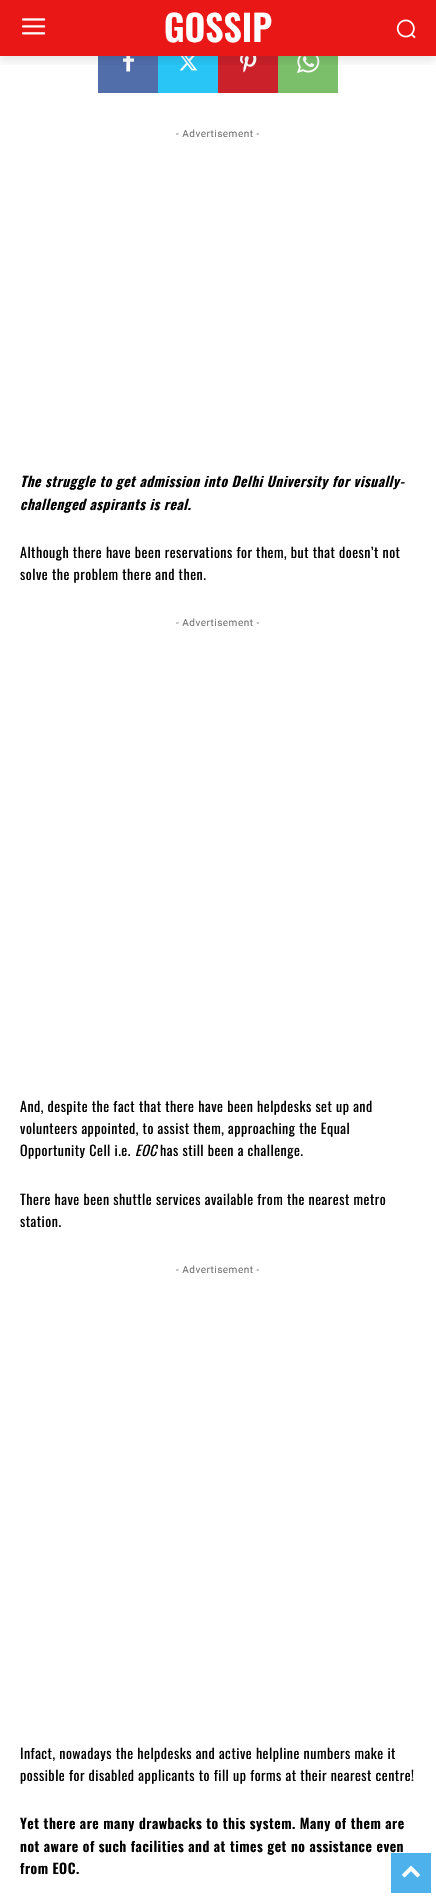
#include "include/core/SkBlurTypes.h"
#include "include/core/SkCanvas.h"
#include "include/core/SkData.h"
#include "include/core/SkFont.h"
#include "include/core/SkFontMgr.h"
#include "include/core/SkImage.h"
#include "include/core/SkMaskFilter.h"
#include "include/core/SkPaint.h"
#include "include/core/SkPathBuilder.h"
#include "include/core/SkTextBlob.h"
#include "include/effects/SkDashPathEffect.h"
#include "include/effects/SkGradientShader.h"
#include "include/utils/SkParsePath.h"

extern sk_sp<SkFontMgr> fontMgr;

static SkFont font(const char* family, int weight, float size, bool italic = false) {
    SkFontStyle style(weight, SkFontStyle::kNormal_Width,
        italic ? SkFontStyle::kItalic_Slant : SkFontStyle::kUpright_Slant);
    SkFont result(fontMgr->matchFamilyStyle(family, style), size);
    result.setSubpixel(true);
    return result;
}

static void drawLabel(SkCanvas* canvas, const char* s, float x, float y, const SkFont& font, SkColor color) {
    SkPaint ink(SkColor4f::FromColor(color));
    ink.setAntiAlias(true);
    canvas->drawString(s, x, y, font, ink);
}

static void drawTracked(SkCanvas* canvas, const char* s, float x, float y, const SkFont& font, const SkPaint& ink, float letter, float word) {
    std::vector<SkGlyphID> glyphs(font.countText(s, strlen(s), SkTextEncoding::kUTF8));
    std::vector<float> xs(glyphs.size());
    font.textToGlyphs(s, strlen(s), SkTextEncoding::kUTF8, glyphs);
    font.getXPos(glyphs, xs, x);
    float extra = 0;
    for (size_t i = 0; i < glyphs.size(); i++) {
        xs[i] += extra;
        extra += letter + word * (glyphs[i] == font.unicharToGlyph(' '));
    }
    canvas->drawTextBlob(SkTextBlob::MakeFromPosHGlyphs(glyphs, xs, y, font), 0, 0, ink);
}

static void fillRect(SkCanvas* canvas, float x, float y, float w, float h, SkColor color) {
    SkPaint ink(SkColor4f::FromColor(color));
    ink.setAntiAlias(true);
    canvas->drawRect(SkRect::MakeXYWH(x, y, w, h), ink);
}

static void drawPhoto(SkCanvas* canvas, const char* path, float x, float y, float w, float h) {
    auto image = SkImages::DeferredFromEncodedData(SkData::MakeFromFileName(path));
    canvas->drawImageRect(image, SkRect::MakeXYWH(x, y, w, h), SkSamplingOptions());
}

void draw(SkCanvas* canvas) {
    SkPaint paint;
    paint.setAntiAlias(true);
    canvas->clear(0xFFFFFFFF);
    fillRect(canvas, 0, 0, 436, 56, 0xFFEA1717);
    drawPhoto(canvas, "assets/img1.png", 22, 18, 24, 17);
    drawPhoto(canvas, "assets/img2.png", 396, 19, 20, 20);
    fillRect(canvas, 98, 56, 60, 37, 0xFF516EAB);
    drawPhoto(canvas, "assets/img3.png", 123, 56, 11, 16);
    fillRect(canvas, 158, 56, 60, 37, 0xFF29C5F6);
    drawPhoto(canvas, "assets/img4.png", 179, 56, 19, 15);
    fillRect(canvas, 218, 56, 60, 37, 0xFFCA212A);
    drawPhoto(canvas, "assets/img5.png", 240, 56, 17, 17);
    fillRect(canvas, 278, 56, 60, 37, 0xFF7BBF6A);
    drawPhoto(canvas, "assets/img6.png", 297, 56, 23, 17);
    canvas->save();
    canvas->clipRect(SkRect::MakeXYWH(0, 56, 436, 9));
    paint.setColor(0x14000000);
    paint.setMaskFilter(SkMaskFilter::MakeBlur(kNormal_SkBlurStyle, 4));
    canvas->drawRect(SkRect::MakeXYWH(0, 6, 436, 56), paint);
    paint.setMaskFilter(nullptr);
    canvas->restore();
    SkFont font1 = font("Oswald", 600, 36);
    drawLabel(canvas, "GOSSIP", 164, 42, font1, 0xFFFFFFFF);
    SkFont font2 = font("Roboto", 400, 10);
    paint.setColor(0xFF767676);
    drawTracked(canvas, "- Advertisement -", 176, 137, font2, paint, 0.5f, 0);
    SkFont font3 = font("Oswald", 600, 14, true);
    paint.setColor(0xFF000000);
    drawTracked(canvas, "The struggle to get admission into Delhi University for visually-", 20, 487, font3, paint, 0.5f, 0);
    drawTracked(canvas, "challenged aspirants is real.", 20, 510, font3, paint, 0.5f, 0);
    SkFont font4 = font("Oswald", 400, 14);
    drawTracked(canvas, "Although there have been reservations for them, but that doesn’t not", 20, 558, font4, paint, 0.5f, 0);
    drawTracked(canvas, "solve the problem there and then.", 20, 580, font4, paint, 0.5f, 0);
    paint.setColor(0xFF767676);
    drawTracked(canvas, "- Advertisement -", 176, 626, font2, paint, 0.5f, 0);
    paint.setColor(0xFF000000);
    drawTracked(canvas, "And, despite the fact that there have been helpdesks set up and", 20, 1112, font4, paint, 0.5f, 0);
    drawTracked(canvas, "volunteers appointed, to assist them, approaching the Equal", 20, 1134, font4, paint, 0.5f, 0);
    drawTracked(canvas, "Opportunity Cell i.e.", 20, 1156, font4, paint, 0.5f, 0);
    SkFont font5 = font("Oswald", 400, 14, true);
    drawTracked(canvas, "EOC", 135, 1156, font5, paint, 0.5f, 0);
    drawTracked(canvas, "has still been a challenge.", 160, 1156, font4, paint, 0.5f, 0);
    drawTracked(canvas, "There have been shuttle services available from the nearest metro", 20, 1205, font4, paint, 0.5f, 0);
    drawTracked(canvas, "station.", 20, 1227, font4, paint, 0.5f, 0);
    paint.setColor(0xFF767676);
    drawTracked(canvas, "- Advertisement -", 176, 1273, font2, paint, 0.5f, 0);
    paint.setColor(0xFF000000);
    drawTracked(canvas, "Infact, nowadays the helpdesks and active helpline numbers make it", 20, 1759, font4, paint, 0.5f, 0);
    drawTracked(canvas, "possible for disabled applicants to fill up forms at their nearest centre!", 20, 1781, font4, paint, 0.5f, 0);
    SkFont font6 = font("Oswald", 600, 14);
    drawTracked(canvas, "Yet there are many drawbacks to this system. Many of them are", 20, 1829, font6, paint, 0.5f, 0);
    drawTracked(canvas, "not aware of such facilities and at times get no assistance even", 20, 1852, font6, paint, 0.5f, 0);
    drawTracked(canvas, "from EOC.", 20, 1874, font6, paint, 0.5f, 0);
    fillRect(canvas, 391, 1853, 40, 40, 0xFF4DB2EC);
    drawPhoto(canvas, "assets/img7.png", 402, 1865, 18, 13);
}
